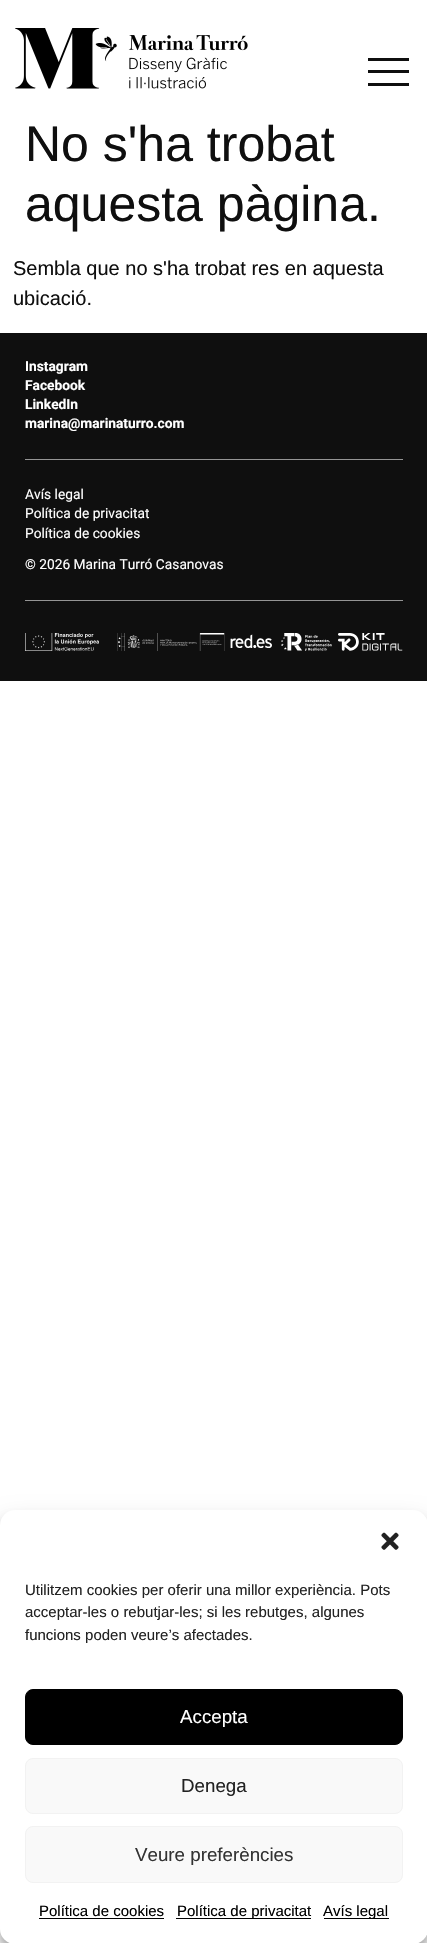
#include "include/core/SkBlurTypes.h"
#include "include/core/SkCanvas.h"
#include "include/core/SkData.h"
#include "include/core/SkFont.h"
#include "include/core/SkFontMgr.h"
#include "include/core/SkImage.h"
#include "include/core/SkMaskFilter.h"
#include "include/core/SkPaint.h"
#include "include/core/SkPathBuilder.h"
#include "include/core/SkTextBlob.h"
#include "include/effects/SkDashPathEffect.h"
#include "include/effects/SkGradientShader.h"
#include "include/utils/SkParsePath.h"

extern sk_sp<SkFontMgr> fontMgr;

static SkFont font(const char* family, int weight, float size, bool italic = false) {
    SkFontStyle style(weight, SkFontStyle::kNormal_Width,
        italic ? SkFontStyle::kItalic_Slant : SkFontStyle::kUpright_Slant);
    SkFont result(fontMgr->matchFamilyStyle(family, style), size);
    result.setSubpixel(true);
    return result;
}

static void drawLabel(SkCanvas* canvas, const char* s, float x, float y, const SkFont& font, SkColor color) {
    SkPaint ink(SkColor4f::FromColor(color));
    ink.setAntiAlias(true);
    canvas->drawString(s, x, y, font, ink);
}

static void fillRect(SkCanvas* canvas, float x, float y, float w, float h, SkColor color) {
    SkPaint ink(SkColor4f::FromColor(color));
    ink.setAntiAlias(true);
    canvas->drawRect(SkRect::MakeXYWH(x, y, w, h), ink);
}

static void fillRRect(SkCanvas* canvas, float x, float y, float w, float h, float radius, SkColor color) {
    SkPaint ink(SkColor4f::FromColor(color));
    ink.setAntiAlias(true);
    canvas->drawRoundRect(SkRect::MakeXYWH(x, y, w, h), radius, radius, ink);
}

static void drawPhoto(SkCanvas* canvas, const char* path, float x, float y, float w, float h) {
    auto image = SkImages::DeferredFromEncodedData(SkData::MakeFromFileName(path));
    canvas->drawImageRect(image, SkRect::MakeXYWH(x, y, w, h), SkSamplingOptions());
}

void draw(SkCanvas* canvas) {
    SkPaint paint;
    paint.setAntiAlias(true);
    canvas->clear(0xFFFFFFFF);
    drawPhoto(canvas, "assets/img1.png", 15, 28, 233, 61);
    fillRect(canvas, 368, 70, 41, 3, 0xFF0F0F0F);
    fillRect(canvas, 368, 58, 41, 3, 0xFF0F0F0F);
    fillRect(canvas, 368, 83, 41, 3, 0xFF0F0F0F);
    SkFont font1 = font("Liberation Sans", 400, 50);
    drawLabel(canvas, "No s'ha trobat", 25, 161, font1, 0xFF0F0F0F);
    drawLabel(canvas, "aquesta pàgina.", 25, 221, font1, 0xFF0F0F0F);
    SkFont font2 = font("Liberation Sans", 400, 20);
    drawLabel(canvas, "Sembla que no s'ha trobat res en aquesta", 13, 275, font2, 0xFF0F0F0F);
    drawLabel(canvas, "ubicació.", 13, 305, font2, 0xFF0F0F0F);
    fillRect(canvas, 0, 333, 427, 348, 0xFF0F0F0F);
    SkFont font3 = font("Roboto", 700, 13.75f);
    drawLabel(canvas, "Instagram", 25, 371, font3, 0xFFFFFFFF);
    drawLabel(canvas, "Facebook", 25, 390, font3, 0xFFFFFFFF);
    drawLabel(canvas, "LinkedIn", 25, 409, font3, 0xFFFFFFFF);
    drawLabel(canvas, "marina@marinaturro.com", 25, 428, font3, 0xFFFFFFFF);
    fillRect(canvas, 25, 459, 378, 1, 0xFF959595);
    SkFont font4 = font("Roboto", 400, 13.75f);
    drawLabel(canvas, "Avís legal", 25, 499, font4, 0xFFFFFFFF);
    drawLabel(canvas, "Política de privacitat", 25, 518, font4, 0xFFFFFFFF);
    drawLabel(canvas, "Política de cookies", 25, 538, font4, 0xFFFFFFFF);
    drawLabel(canvas, "© 2026 Marina Turró Casanovas", 25, 569, font4, 0xFFFFFFFF);
    fillRect(canvas, 25, 600, 378, 1, 0xFF959595);
    drawPhoto(canvas, "assets/img2.png", 25, 633, 378, 18);
    paint.setColor(0x3B000000);
    paint.setMaskFilter(SkMaskFilter::MakeBlur(kNormal_SkBlurStyle, 4));
    canvas->drawRoundRect(SkRect::MakeXYWH(0, 1518, 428, 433), 15, 15, paint);
    paint.setMaskFilter(nullptr);
    paint.setColor(0x30000000);
    paint.setMaskFilter(SkMaskFilter::MakeBlur(kNormal_SkBlurStyle, 12.5f));
    canvas->drawRoundRect(SkRect::MakeXYWH(0, 1523, 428, 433), 15, 15, paint);
    paint.setMaskFilter(nullptr);
    fillRRect(canvas, 0, 1510, 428, 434, 15, 0xFFFFFFFF);
    drawPhoto(canvas, "assets/img3.png", 381, 1532, 18, 18);
    SkFont font5 = font("Liberation Sans", 400, 15);
    drawLabel(canvas, "Utilitzem cookies per oferir una millor experiència. Pots", 25, 1595, font5, 0xFF222222);
    drawLabel(canvas, "acceptar-les o rebutjar-les; si les rebutges, algunes", 25, 1617, font5, 0xFF222222);
    drawLabel(canvas, "funcions poden veure’s afectades.", 25, 1640, font5, 0xFF222222);
    paint.setColor(0xFF000000);
    canvas->drawRoundRect(SkRect::MakeXYWH(25.5f, 1689.5f, 377, 55), 7.5f, 7.5f, paint);
    paint.setStroke(true);
    paint.setStrokeWidth(1);
    canvas->drawRoundRect(SkRect::MakeXYWH(25.5f, 1689.5f, 377, 55), 7.5f, 7.5f, paint);
    SkFont font6 = font("Liberation Sans", 400, 18.75f);
    drawLabel(canvas, "Accepta", 180, 1723, font6, 0xFFFFFFFF);
    paint.setStroke(false);
    paint.setColor(0xFFF9F9F9);
    canvas->drawRoundRect(SkRect::MakeXYWH(25.5f, 1758.5f, 377, 55), 7.5f, 7.5f, paint);
    paint.setStroke(true);
    paint.setColor(0xFFF2F2F2);
    canvas->drawRoundRect(SkRect::MakeXYWH(25.5f, 1758.5f, 377, 55), 7.5f, 7.5f, paint);
    drawLabel(canvas, "Denega", 181, 1792, font6, 0xFF222222);
    paint.setStroke(false);
    paint.setColor(0xFFF9F9F9);
    canvas->drawRoundRect(SkRect::MakeXYWH(25.5f, 1826.5f, 377, 56), 7.5f, 7.5f, paint);
    paint.setStroke(true);
    paint.setColor(0xFFF2F2F2);
    canvas->drawRoundRect(SkRect::MakeXYWH(25.5f, 1826.5f, 377, 56), 7.5f, 7.5f, paint);
    drawLabel(canvas, "Veure preferències", 135, 1861, font6, 0xFF333333);
    drawLabel(canvas, "Política de cookies", 39, 1916, font5, 0xFF000000);
    fillRect(canvas, 39, 1918, 125, 1, 0xFF000000);
    fillRect(canvas, 176, 1918, 135, 1, 0xFF000000);
    drawLabel(canvas, "Política de privacitat", 177, 1916, font5, 0xFF000000);
    fillRect(canvas, 324, 1918, 65, 1, 0xFF000000);
    drawLabel(canvas, "Avís legal", 323, 1916, font5, 0xFF000000);
}
